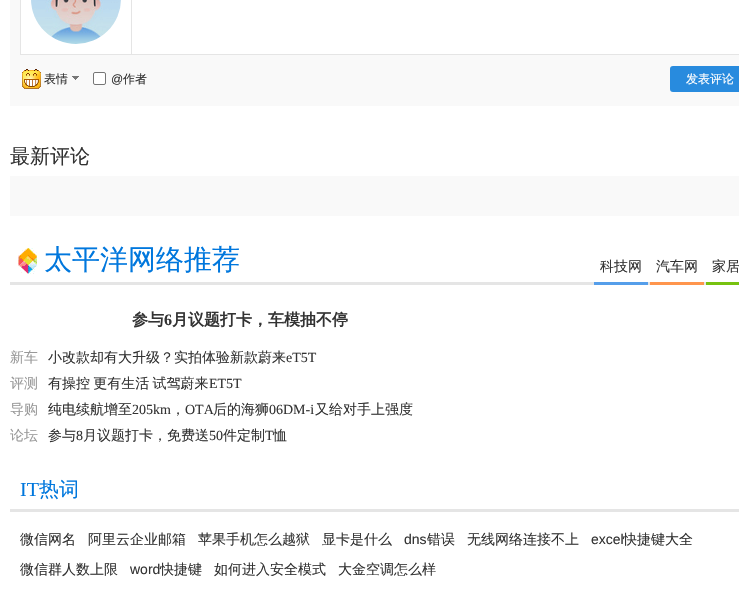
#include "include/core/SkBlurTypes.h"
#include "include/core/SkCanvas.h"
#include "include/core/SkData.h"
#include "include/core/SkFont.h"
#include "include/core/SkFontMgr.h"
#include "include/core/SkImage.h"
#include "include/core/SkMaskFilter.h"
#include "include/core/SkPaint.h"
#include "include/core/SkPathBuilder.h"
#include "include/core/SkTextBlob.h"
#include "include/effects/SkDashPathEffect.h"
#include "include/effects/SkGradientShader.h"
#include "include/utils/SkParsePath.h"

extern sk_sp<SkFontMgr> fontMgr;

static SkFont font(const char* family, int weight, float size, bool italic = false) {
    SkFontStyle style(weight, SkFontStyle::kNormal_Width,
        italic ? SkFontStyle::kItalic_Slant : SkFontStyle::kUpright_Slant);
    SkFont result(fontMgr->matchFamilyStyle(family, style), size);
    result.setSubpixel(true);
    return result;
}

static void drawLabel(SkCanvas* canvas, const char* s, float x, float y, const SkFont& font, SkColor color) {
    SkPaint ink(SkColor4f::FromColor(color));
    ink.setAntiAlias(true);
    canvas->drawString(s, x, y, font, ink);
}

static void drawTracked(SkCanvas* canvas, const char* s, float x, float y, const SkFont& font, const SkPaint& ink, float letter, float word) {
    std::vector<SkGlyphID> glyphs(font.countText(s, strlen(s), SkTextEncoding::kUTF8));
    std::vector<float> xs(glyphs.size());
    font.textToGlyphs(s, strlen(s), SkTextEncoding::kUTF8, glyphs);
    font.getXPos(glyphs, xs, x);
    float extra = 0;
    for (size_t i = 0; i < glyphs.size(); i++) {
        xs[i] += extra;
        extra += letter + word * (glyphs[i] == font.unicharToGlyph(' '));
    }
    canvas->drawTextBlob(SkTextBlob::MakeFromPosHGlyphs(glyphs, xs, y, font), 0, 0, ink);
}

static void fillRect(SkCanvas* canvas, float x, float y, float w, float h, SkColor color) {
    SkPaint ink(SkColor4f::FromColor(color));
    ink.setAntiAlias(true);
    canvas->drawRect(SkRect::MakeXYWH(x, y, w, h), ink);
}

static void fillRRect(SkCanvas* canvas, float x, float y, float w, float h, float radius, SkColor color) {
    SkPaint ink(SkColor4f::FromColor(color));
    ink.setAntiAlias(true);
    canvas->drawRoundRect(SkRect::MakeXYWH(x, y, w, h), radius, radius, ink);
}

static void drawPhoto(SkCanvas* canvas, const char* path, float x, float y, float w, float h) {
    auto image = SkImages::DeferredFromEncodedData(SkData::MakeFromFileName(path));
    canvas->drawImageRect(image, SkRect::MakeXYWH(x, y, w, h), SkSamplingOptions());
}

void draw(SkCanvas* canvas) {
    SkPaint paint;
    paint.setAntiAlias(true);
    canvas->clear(0xFFFFFFFF);
    fillRect(canvas, 10, 0, 729, 106, 0xFFF9F9F9);
    paint.setStroke(true);
    paint.setStrokeWidth(1);
    paint.setColor(0xFFE5E5E5);
    canvas->drawRect(SkRect::MakeXYWH(20.5f, -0.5f, 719, 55), paint);
    fillRect(canvas, 21, 0, 110, 54, 0xFFFFFFFF);
    fillRect(canvas, 131, 0, 1, 54, 0xFFE5E5E5);
    drawPhoto(canvas, "assets/img1.png", 31, 0, 90, 44);
    fillRect(canvas, 132, 0, 607, 54, 0xFFFFFFFF);
    drawPhoto(canvas, "assets/img2.png", 72, 76, 7, 4);
    drawPhoto(canvas, "assets/img3.png", 22, 69, 19, 20);
    SkFont font1 = font("WenQuanYi Zen Hei", 500, 12);
    drawLabel(canvas, "表情", 44, 83, font1, 0xFF333333);
    paint.setStroke(false);
    paint.setColor(0xFFFFFFFF);
    canvas->drawRoundRect(SkRect::MakeXYWH(93.5f, 72.5f, 12, 12), 1.5f, 1.5f, paint);
    paint.setStroke(true);
    paint.setColor(0xFF767676);
    canvas->drawRoundRect(SkRect::MakeXYWH(93.5f, 72.5f, 12, 12), 1.5f, 1.5f, paint);
    SkFont font2 = font("Liberation Sans", 400, 12);
    drawLabel(canvas, "@", 111, 83, font2, 0xFF333333);
    drawLabel(canvas, "作者", 123, 83, font1, 0xFF333333);
    fillRRect(canvas, 670, 66, 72, 26, 3, 0xFF288BDE);
    drawLabel(canvas, "发表评论", 686, 83, font1, 0xFFFFFFFF);
    SkFont font3 = font("WenQuanYi Zen Hei", 500, 20);
    drawLabel(canvas, "最新评论", 10, 163, font3, 0xFF333333);
    fillRect(canvas, 10, 176, 729, 40, 0xFFF9F9F9);
    fillRect(canvas, 10, 282, 696, 3, 0xFFE5E5E5);
    drawPhoto(canvas, "assets/img4.png", 18, 248, 19, 26);
    SkFont font4 = font("WenQuanYi Zen Hei", 500, 28);
    drawLabel(canvas, "太平洋网络推荐", 44, 269, font4, 0xFF0077DD);
    fillRect(canvas, 594, 282, 54, 3, 0xFF559EEA);
    SkFont font5 = font("WenQuanYi Zen Hei", 500, 14);
    drawLabel(canvas, "科技网", 600, 271, font5, 0xFF333333);
    fillRect(canvas, 650, 282, 54, 3, 0xFFFF954D);
    drawLabel(canvas, "汽车网", 656, 271, font5, 0xFF333333);
    fillRect(canvas, 706, 282, 33, 3, 0xFF77C210);
    drawLabel(canvas, "家居", 712, 271, font5, 0xFF333333);
    SkFont font6 = font("WenQuanYi Zen Hei", 700, 16);
    drawLabel(canvas, "参与", 132, 325, font6, 0xFF333333);
    SkFont font7 = font("Liberation Serif", 700, 16);
    drawLabel(canvas, "6", 164, 325, font7, 0xFF333333);
    drawLabel(canvas, "月议题打卡，车模抽不停", 172, 325, font6, 0xFF333333);
    drawLabel(canvas, "新车", 10, 362, font5, 0xFF999999);
    drawLabel(canvas, "小改款却有大升级？实拍体验新款蔚来", 48, 362, font5, 0xFF333333);
    SkFont font8 = font("Liberation Serif", 400, 14);
    drawLabel(canvas, "eT5T", 286, 362, font8, 0xFF333333);
    drawLabel(canvas, "评测", 10, 388, font5, 0xFF999999);
    paint.setStroke(false);
    paint.setColor(0xFF333333);
    drawTracked(canvas, "有操控 更有生活 试驾蔚来", 48, 388, font5, paint, 0, -1);
    drawLabel(canvas, "ET5T", 209, 388, font8, 0xFF333333);
    drawLabel(canvas, "导购", 10, 414, font5, 0xFF999999);
    drawLabel(canvas, "纯电续航增至", 48, 414, font5, 0xFF333333);
    drawLabel(canvas, "205km", 132, 414, font8, 0xFF333333);
    drawLabel(canvas, "，", 171, 414, font5, 0xFF333333);
    drawLabel(canvas, "OTA", 185, 414, font8, 0xFF333333);
    drawLabel(canvas, "后的海狮", 213, 414, font5, 0xFF333333);
    drawLabel(canvas, "06DM-i", 269, 414, font8, 0xFF333333);
    drawLabel(canvas, "又给对手上强度", 315, 414, font5, 0xFF333333);
    drawLabel(canvas, "论坛", 10, 440, font5, 0xFF999999);
    drawLabel(canvas, "参与", 48, 440, font5, 0xFF333333);
    drawLabel(canvas, "8", 76, 440, font8, 0xFF333333);
    drawLabel(canvas, "月议题打卡，免费送", 83, 440, font5, 0xFF333333);
    drawLabel(canvas, "50", 209, 440, font8, 0xFF333333);
    drawLabel(canvas, "件定制", 223, 440, font5, 0xFF333333);
    drawLabel(canvas, "T", 265, 440, font8, 0xFF333333);
    drawLabel(canvas, "恤", 273, 440, font5, 0xFF333333);
    fillRect(canvas, 10, 509, 729, 3, 0xFFE5E5E5);
    SkFont font9 = font("Liberation Serif", 400, 20);
    drawLabel(canvas, "IT", 20, 496, font9, 0xFF0077DD);
    drawLabel(canvas, "热词", 39, 496, font3, 0xFF0077DD);
    drawLabel(canvas, "微信网名", 20, 544, font5, 0xFF333333);
    drawLabel(canvas, "阿里云企业邮箱", 88, 544, font5, 0xFF333333);
    drawLabel(canvas, "苹果手机怎么越狱", 198, 544, font5, 0xFF333333);
    drawLabel(canvas, "显卡是什么", 322, 544, font5, 0xFF333333);
    SkFont font10 = font("Liberation Sans", 400, 14);
    drawLabel(canvas, "dns", 404, 544, font10, 0xFF333333);
    drawLabel(canvas, "错误", 427, 544, font5, 0xFF333333);
    drawLabel(canvas, "无线网络连接不上", 467, 544, font5, 0xFF333333);
    drawLabel(canvas, "excel", 591, 544, font10, 0xFF333333);
    drawLabel(canvas, "快捷键大全", 623, 544, font5, 0xFF333333);
    drawLabel(canvas, "微信群人数上限", 20, 574, font5, 0xFF333333);
    drawLabel(canvas, "word", 130, 574, font10, 0xFF333333);
    drawLabel(canvas, "快捷键", 160, 574, font5, 0xFF333333);
    drawLabel(canvas, "如何进入安全模式", 214, 574, font5, 0xFF333333);
    drawLabel(canvas, "大金空调怎么样", 338, 574, font5, 0xFF333333);
}
